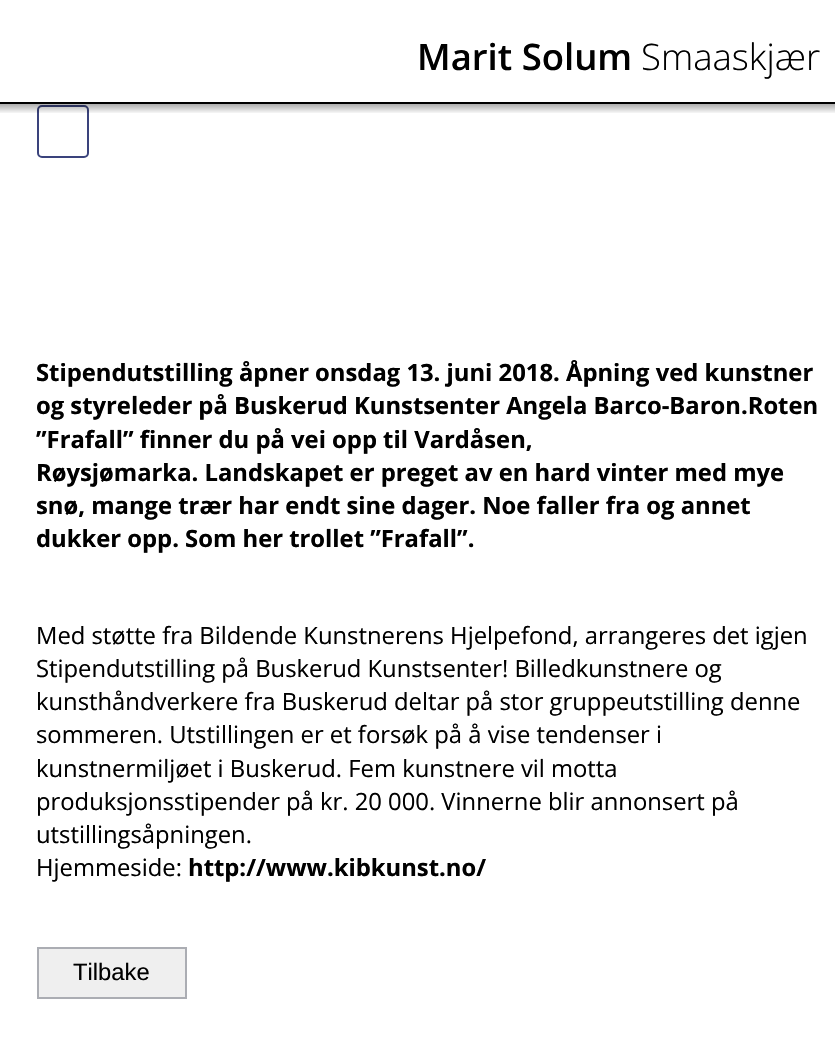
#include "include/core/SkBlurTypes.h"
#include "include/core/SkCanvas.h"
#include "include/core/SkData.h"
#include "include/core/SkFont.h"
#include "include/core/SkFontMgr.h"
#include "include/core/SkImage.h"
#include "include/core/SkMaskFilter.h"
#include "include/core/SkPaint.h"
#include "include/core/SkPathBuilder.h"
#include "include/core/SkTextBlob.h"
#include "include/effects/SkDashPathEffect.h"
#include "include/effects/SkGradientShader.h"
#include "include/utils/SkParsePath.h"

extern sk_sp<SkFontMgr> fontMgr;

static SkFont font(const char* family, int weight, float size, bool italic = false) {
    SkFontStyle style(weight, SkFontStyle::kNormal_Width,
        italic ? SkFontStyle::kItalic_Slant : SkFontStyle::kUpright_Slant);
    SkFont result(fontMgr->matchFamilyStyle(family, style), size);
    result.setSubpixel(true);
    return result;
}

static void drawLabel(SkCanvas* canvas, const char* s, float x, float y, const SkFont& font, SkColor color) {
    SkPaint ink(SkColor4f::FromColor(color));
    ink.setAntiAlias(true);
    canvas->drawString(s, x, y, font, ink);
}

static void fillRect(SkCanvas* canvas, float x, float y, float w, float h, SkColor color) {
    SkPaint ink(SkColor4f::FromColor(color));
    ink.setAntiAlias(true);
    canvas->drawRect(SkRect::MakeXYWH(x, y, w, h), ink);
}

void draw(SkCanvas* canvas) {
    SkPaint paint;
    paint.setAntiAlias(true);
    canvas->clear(0xFFFFFFFF);
    fillRect(canvas, 0, 102, 835, 2, 0xFF000000);
    SkFont font1 = font("Open Sans", 600, 36.5f);
    drawLabel(canvas, "Marit Solum", 417, 70, font1, 0xFF000000);
    SkFont font2 = font("Open Sans", 300, 36.5f);
    drawLabel(canvas, "Smaaskjær", 641, 70, font2, 0xFF000000);
    paint.setStroke(true);
    paint.setStrokeWidth(2);
    paint.setColor(0xFF3A437C);
    canvas->drawRoundRect(SkRect::MakeXYWH(38, 106, 50, 51), 4, 4, paint);
    paint.setStroke(false);
    {
        const SkColor colors[] = {0x59000000, 0x00000000};
        const float stops[] = {0, 1};
        const SkPoint ends[] = {{418, 103}, {418, 114}};
        paint.setShader(SkGradientShader::MakeLinear(ends, colors, stops, 2, SkTileMode::kClamp));
        paint.setAlpha(255);
    }
    canvas->drawRect(SkRect::MakeXYWH(0, 104, 835, 9), paint);
    SkFont font3 = font("Open Sans", 700, 23.8f);
    drawLabel(canvas, "Stipendutstilling åpner onsdag 13. juni 2018. Åpning ved kunstner", 36, 381, font3, 0xFF000000);
    drawLabel(canvas, "og styreleder på Buskerud Kunstsenter Angela Barco-Baron.Roten", 36, 414, font3, 0xFF000000);
    drawLabel(canvas, "”Frafall” finner du på vei opp til Vardåsen,", 36, 448, font3, 0xFF000000);
    drawLabel(canvas, "Røysjømarka. Landskapet er preget av en hard vinter med mye", 36, 481, font3, 0xFF000000);
    drawLabel(canvas, "snø, mange trær har endt sine dager. Noe faller fra og annet", 36, 514, font3, 0xFF000000);
    drawLabel(canvas, "dukker opp. Som her trollet ”Frafall”.", 36, 547, font3, 0xFF000000);
    SkFont font4 = font("Open Sans", 400, 23.8f);
    drawLabel(canvas, "Med støtte fra Bildende Kunstnerens Hjelpefond, arrangeres det igjen", 36, 644, font4, 0xFF000000);
    drawLabel(canvas, "Stipendutstilling på Buskerud Kunstsenter! Billedkunstnere og", 36, 677, font4, 0xFF000000);
    drawLabel(canvas, "kunsthåndverkere fra Buskerud deltar på stor gruppeutstilling denne", 36, 710, font4, 0xFF000000);
    drawLabel(canvas, "sommeren. Utstillingen er et forsøk på å vise tendenser i", 36, 743, font4, 0xFF000000);
    drawLabel(canvas, "kunstnermiljøet i Buskerud. Fem kunstnere vil motta", 36, 777, font4, 0xFF000000);
    drawLabel(canvas, "produksjonsstipender på kr. 20 000. Vinnerne blir annonsert på", 36, 810, font4, 0xFF000000);
    drawLabel(canvas, "utstillingsåpningen.", 36, 843, font4, 0xFF000000);
    drawLabel(canvas, "Hjemmeside:", 36, 876, font4, 0xFF000000);
    drawLabel(canvas, "http://www.kibkunst.no/", 188, 876, font3, 0xFF000000);
    paint.setShader(nullptr);
    paint.setColor(0xFFEFEFEF);
    canvas->drawRect(SkRect::MakeXYWH(38, 948, 148, 50), paint);
    paint.setStroke(true);
    paint.setColor(0xFFABADB3);
    canvas->drawRect(SkRect::MakeXYWH(38, 948, 148, 50), paint);
    SkFont font5 = font("Liberation Sans", 400, 23.8f);
    drawLabel(canvas, "Tilbake", 73, 980, font5, 0xFF000000);
}
